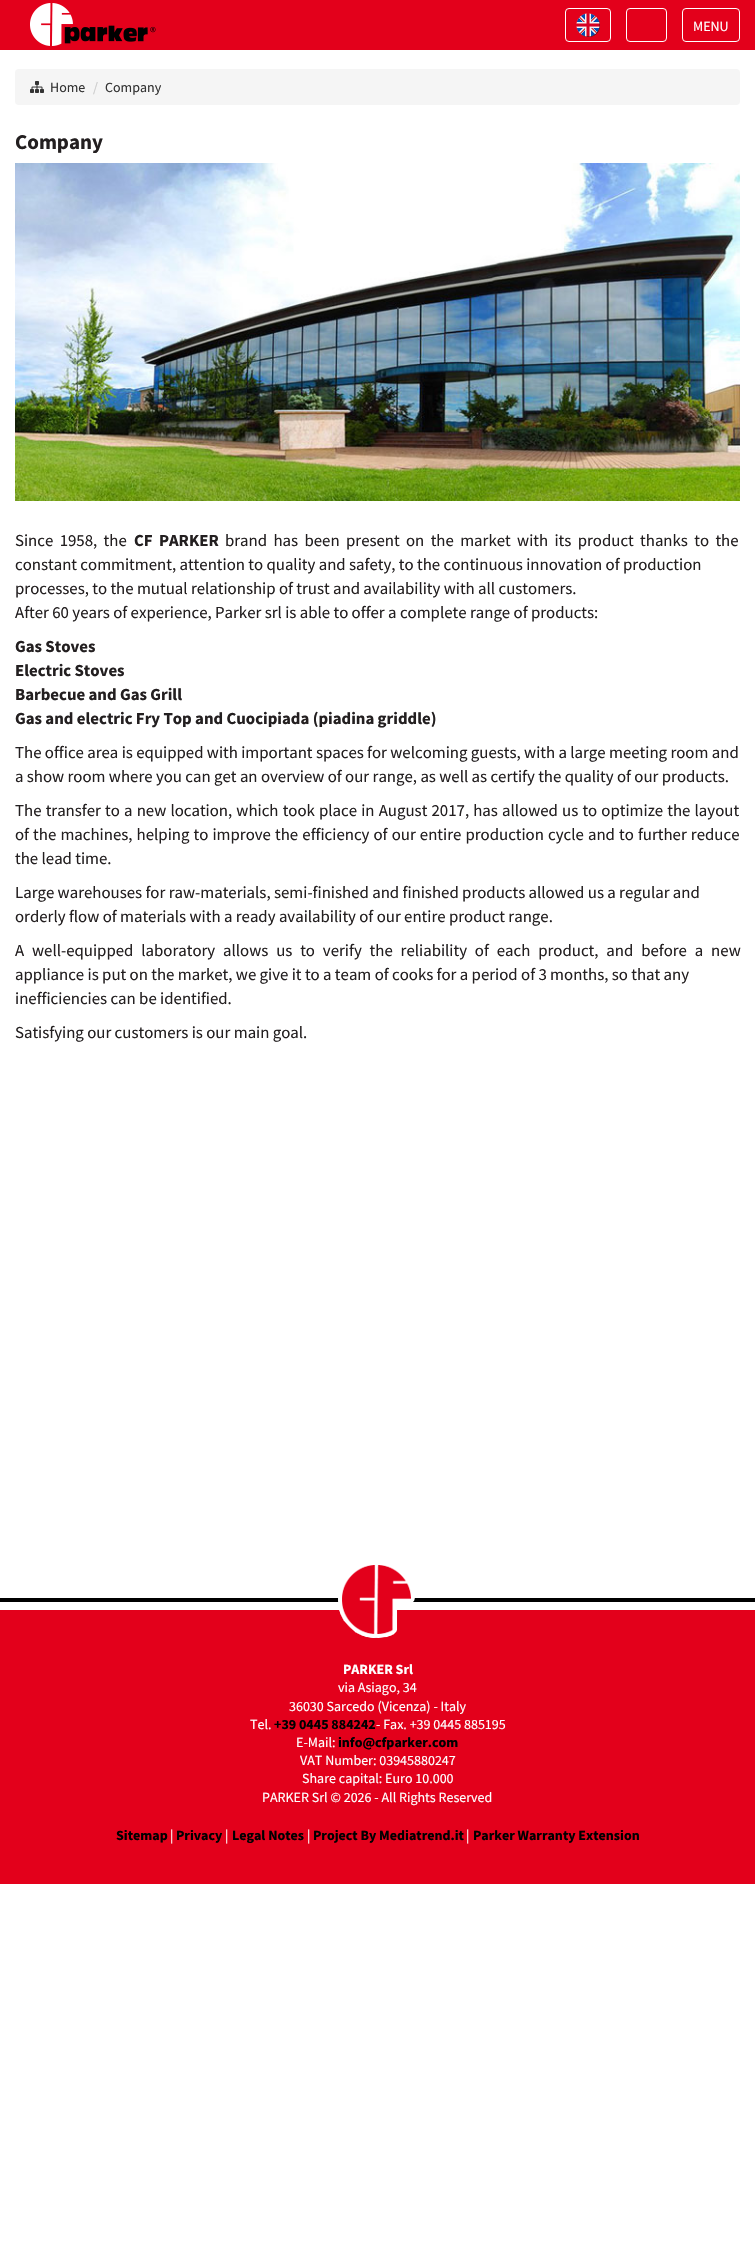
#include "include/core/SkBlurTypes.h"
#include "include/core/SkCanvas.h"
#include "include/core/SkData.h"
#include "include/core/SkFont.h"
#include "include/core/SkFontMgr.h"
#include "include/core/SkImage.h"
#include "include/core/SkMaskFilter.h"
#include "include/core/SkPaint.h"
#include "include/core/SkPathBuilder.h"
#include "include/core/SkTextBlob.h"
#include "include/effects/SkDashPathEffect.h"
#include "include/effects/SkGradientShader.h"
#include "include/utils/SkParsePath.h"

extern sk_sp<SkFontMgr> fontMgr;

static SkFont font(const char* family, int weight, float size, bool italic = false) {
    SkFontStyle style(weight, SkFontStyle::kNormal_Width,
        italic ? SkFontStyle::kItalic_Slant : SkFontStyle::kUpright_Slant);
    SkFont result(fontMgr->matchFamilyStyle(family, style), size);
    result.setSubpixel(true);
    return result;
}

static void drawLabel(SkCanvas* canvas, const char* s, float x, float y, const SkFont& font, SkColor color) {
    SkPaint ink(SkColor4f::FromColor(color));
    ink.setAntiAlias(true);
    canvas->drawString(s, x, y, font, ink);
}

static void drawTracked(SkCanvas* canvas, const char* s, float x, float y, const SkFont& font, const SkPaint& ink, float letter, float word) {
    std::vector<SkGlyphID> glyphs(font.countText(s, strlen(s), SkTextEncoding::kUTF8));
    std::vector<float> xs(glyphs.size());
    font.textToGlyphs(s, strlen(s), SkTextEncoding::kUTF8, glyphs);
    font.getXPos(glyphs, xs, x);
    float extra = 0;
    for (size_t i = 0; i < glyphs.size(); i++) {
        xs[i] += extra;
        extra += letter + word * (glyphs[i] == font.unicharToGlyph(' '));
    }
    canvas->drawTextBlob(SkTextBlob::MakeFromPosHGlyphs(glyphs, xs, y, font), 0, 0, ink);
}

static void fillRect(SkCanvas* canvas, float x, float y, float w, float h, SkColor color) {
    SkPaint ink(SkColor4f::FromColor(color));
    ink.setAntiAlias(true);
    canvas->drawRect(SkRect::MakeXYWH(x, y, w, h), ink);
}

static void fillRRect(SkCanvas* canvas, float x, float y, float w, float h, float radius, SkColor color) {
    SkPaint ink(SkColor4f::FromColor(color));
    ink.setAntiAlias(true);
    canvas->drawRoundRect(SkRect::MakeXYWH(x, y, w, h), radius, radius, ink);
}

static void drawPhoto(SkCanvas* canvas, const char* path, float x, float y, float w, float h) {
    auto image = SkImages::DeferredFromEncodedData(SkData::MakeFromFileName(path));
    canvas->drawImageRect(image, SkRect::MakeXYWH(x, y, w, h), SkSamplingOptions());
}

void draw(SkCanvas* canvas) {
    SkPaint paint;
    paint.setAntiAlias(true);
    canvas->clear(0xFFFFFFFF);
    fillRect(canvas, 0, 0, 755, 50, 0xFFE3001B);
    drawPhoto(canvas, "assets/img1.png", 30, 3, 126, 43);
    paint.setStroke(true);
    paint.setStrokeWidth(1);
    paint.setColor(0xFFFFFFFF);
    canvas->drawRoundRect(SkRect::MakeXYWH(565.5f, 8.5f, 45, 33), 3.5f, 3.5f, paint);
    drawPhoto(canvas, "assets/img2.png", 576, 13, 24, 24);
    canvas->drawRoundRect(SkRect::MakeXYWH(626.5f, 8.5f, 40, 33), 3.5f, 3.5f, paint);
    canvas->drawRoundRect(SkRect::MakeXYWH(682.5f, 8.5f, 57, 33), 3.5f, 3.5f, paint);
    SkFont font1 = font("Source Sans Pro", 400, 14);
    drawLabel(canvas, "MENU", 693, 31, font1, 0xFFFFFFFF);
    fillRRect(canvas, 15, 69, 725, 36, 4, 0xFFF5F5F5);
    drawPhoto(canvas, "assets/img3.png", 30, 81, 14, 12);
    drawLabel(canvas, "Home", 50, 92, font1, 0xFF333333);
    drawLabel(canvas, "/", 93, 92, font1, 0xFFCCCCCC);
    drawLabel(canvas, "Company", 105, 92, font1, 0xFF333333);
    SkFont font2 = font("Source Sans Pro", 700, 21);
    drawLabel(canvas, "Company", 15, 149, font2, 0xFF231F20);
    drawPhoto(canvas, "assets/img4.png", 15, 163, 725, 338);
    SkFont font3 = font("Source Sans Pro", 400, 16.8f);
    paint.setStroke(false);
    paint.setColor(0xFF231F20);
    drawTracked(canvas, "Since 1958, the", 15, 546, font3, paint, 0, 3);
    SkFont font4 = font("Source Sans Pro", 700, 16.8f);
    drawTracked(canvas, "CF PARKER", 134, 546, font4, paint, 0, 3);
    drawTracked(canvas, "brand has been present", 225, 546, font3, paint, 0, 3);
    drawTracked(canvas, "on the market with its product thanks to the", 406, 546, font3, paint, 0, 3);
    drawLabel(canvas, "constant commitment, attention to quality and safety, to the continuous innovation of production", 15, 570, font3, 0xFF231F20);
    drawLabel(canvas, "processes, to the mutual relationship of trust and availability with all customers.", 15, 594, font3, 0xFF231F20);
    drawLabel(canvas, "After 60 years of experience, Parker srl is able to offer a complete range of products:", 15, 618, font3, 0xFF231F20);
    drawLabel(canvas, "Gas Stoves", 15, 652, font4, 0xFF231F20);
    drawLabel(canvas, "Electric Stoves", 15, 676, font4, 0xFF231F20);
    drawLabel(canvas, "Barbecue and Gas Grill", 15, 700, font4, 0xFF231F20);
    drawLabel(canvas, "Gas and electric Fry Top and Cuocipiada (piadina griddle)", 15, 724, font4, 0xFF231F20);
    drawLabel(canvas, "The office area is equipped with important spaces for welcoming guests, with a large meeting room and", 15, 758, font3, 0xFF231F20);
    drawLabel(canvas, "a show room where you can get an overview of our range, as well as certify the quality of our products.", 15, 782, font3, 0xFF231F20);
    drawTracked(canvas, "The transfer to a new location, which took place in August 2017, has allowed us to optimize the layout", 15, 816, font3, paint, 0, 0.8f);
    drawTracked(canvas, "of the machines, helping to improve the efficiency of our entire production cycle and to further reduce", 15, 840, font3, paint, 0, 0.75f);
    drawLabel(canvas, "the lead time.", 15, 864, font3, 0xFF231F20);
    drawLabel(canvas, "Large warehouses for raw-materials, semi-finished and finished products allowed us a regular and", 15, 898, font3, 0xFF231F20);
    drawLabel(canvas, "orderly flow of materials with a ready availability of our entire product range.", 15, 922, font3, 0xFF231F20);
    drawTracked(canvas, "A well-equipped laboratory allows us to verify the reliability of each product, and before a new", 15, 956, font3, paint, 0, 4.5f);
    drawLabel(canvas, "appliance is put on the market, we give it to a team of cooks for a period of 3 months, so that any", 15, 980, font3, 0xFF231F20);
    drawLabel(canvas, "inefficiencies can be identified.", 15, 1004, font3, 0xFF231F20);
    drawLabel(canvas, "Satisfying our customers is our main goal.", 15, 1038, font3, 0xFF231F20);
    fillRect(canvas, 0, 1598, 755, 4, 0xFF000000);
    fillRect(canvas, 0, 1610, 755, 274, 0xFFE3001B);
    drawPhoto(canvas, "assets/img5.png", 338, 1565, 77, 73);
    SkFont font5 = font("Source Sans Pro", 700, 14);
    drawLabel(canvas, "PARKER Srl", 343, 1674, font5, 0xFFFFFFFF);
    drawLabel(canvas, "via Asiago, 34", 338, 1692, font1, 0xFFFFFFFF);
    drawLabel(canvas, "36030 Sarcedo (Vicenza) - Italy", 289, 1711, font1, 0xFFFFFFFF);
    drawLabel(canvas, "Tel.", 250, 1729, font1, 0xFFFFFFFF);
    drawLabel(canvas, "+39 0445 884242", 274, 1729, font5, 0xFF000000);
    drawLabel(canvas, "- Fax. +39 0445 885195", 376, 1729, font1, 0xFFFFFFFF);
    drawLabel(canvas, "E-Mail:", 296, 1747, font1, 0xFFFFFFFF);
    drawLabel(canvas, "info@cfparker.com", 338, 1747, font5, 0xFF000000);
    drawLabel(canvas, "VAT Number: 03945880247", 300, 1765, font1, 0xFFFFFFFF);
    drawLabel(canvas, "Share capital: Euro 10.000", 302, 1783, font1, 0xFFFFFFFF);
    drawLabel(canvas, "PARKER Srl © 2026 - All Rights Reserved", 262, 1802, font1, 0xFFFFFFFF);
    drawLabel(canvas, "Sitemap", 116, 1840, font5, 0xFF000000);
    drawLabel(canvas, "|", 170, 1840, font1, 0xFFFFFFFF);
    drawLabel(canvas, "Privacy", 176, 1840, font5, 0xFF000000);
    drawLabel(canvas, "|", 225, 1840, font1, 0xFFFFFFFF);
    drawLabel(canvas, "Legal Notes", 232, 1840, font5, 0xFF000000);
    drawLabel(canvas, "|", 307, 1840, font1, 0xFFFFFFFF);
    drawLabel(canvas, "Project By Mediatrend.it", 313, 1840, font5, 0xFF000000);
    drawLabel(canvas, "|", 466, 1840, font1, 0xFFFFFFFF);
    drawLabel(canvas, "Parker Warranty Extension", 473, 1840, font5, 0xFF000000);
}
